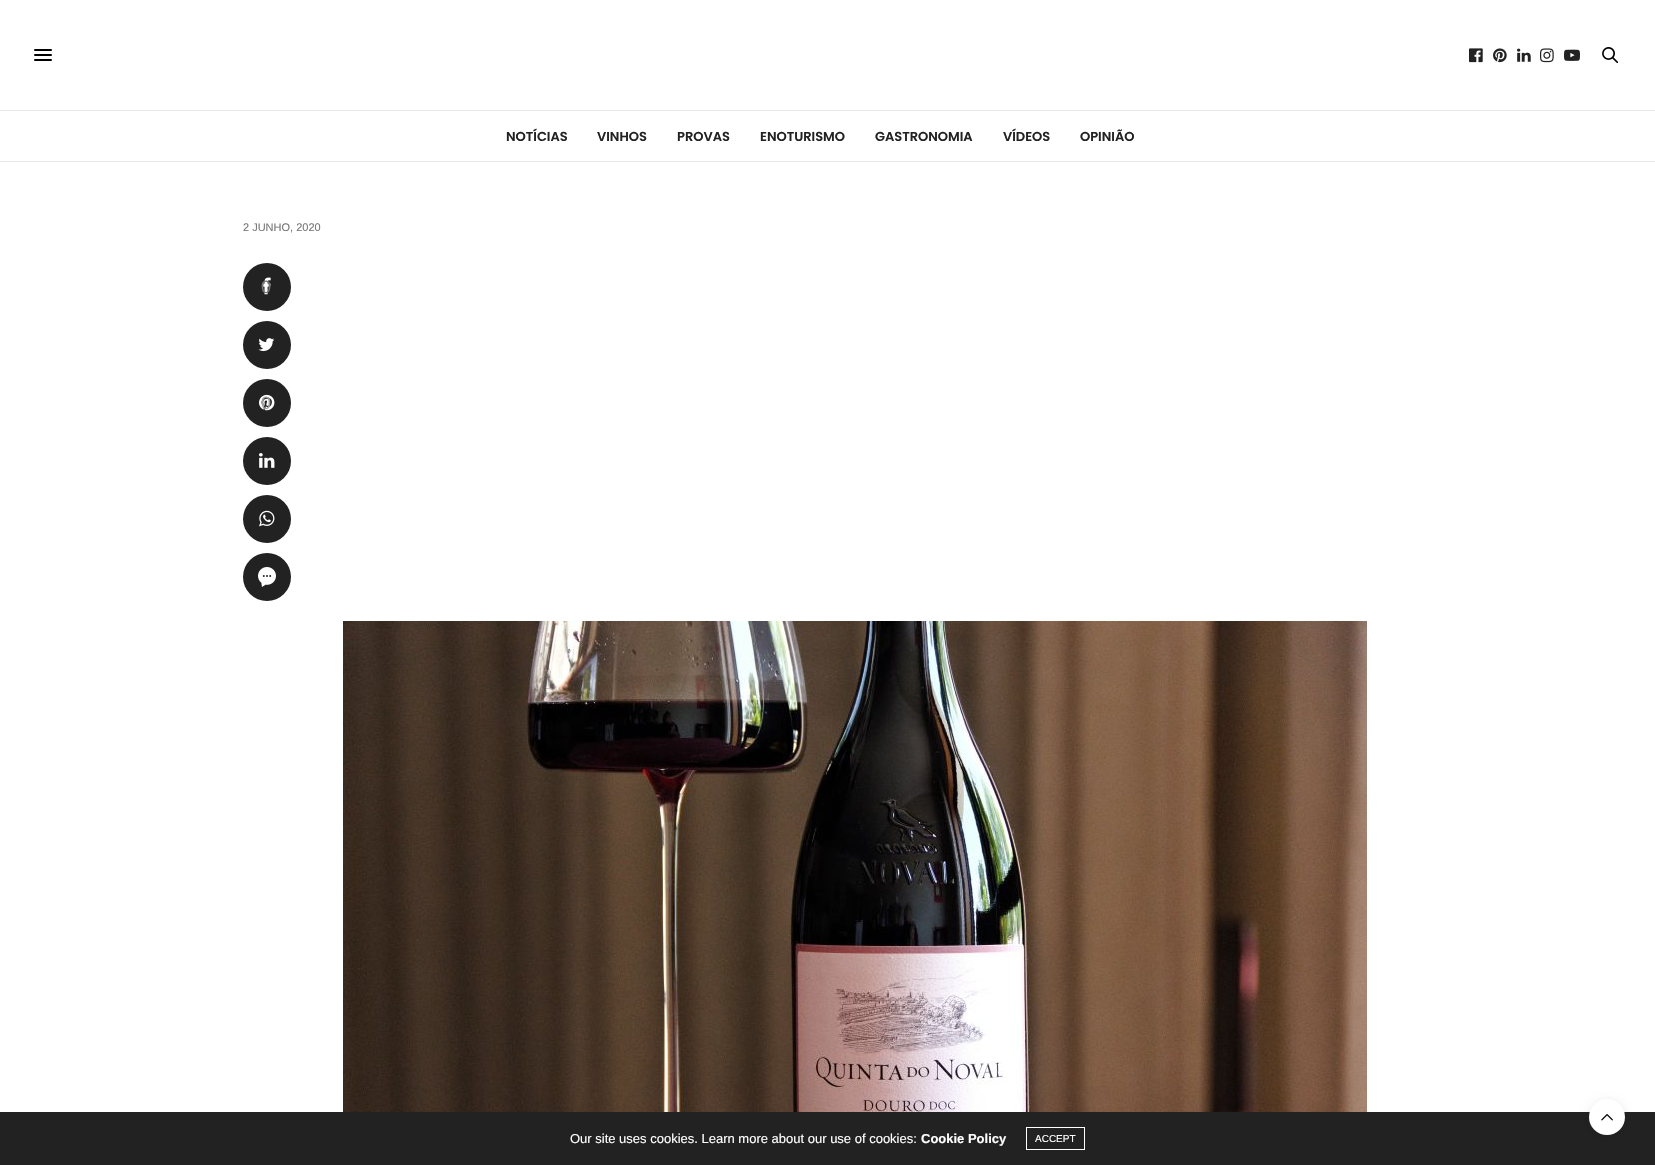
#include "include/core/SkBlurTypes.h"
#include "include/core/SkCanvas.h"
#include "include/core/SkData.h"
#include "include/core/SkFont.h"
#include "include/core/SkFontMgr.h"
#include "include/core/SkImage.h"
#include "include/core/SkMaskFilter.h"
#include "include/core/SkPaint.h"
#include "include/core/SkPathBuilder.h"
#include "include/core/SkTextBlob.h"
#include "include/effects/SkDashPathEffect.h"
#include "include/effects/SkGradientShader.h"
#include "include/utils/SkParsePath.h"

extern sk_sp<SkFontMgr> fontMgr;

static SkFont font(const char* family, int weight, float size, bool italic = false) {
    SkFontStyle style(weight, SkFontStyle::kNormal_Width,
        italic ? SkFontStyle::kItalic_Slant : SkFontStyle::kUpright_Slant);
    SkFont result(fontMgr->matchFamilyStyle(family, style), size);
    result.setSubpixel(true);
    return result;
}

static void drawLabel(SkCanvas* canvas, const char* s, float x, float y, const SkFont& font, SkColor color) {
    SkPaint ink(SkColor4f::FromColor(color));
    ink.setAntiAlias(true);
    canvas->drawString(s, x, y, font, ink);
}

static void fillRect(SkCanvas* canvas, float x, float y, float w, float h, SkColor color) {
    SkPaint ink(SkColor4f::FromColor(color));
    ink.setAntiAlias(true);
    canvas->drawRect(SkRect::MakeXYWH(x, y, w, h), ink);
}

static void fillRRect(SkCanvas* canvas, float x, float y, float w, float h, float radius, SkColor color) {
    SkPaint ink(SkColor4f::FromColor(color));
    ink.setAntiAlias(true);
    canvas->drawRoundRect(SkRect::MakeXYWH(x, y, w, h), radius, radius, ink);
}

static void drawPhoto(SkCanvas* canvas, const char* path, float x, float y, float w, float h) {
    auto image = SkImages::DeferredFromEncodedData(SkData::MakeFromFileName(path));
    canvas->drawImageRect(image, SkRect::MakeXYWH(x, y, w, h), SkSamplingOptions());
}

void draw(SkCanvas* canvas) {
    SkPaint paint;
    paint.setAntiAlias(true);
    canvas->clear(0xFFFFFFFF);
    fillRect(canvas, 0, 110, 1655, 1, 0xFFE6E6E6);
    fillRRect(canvas, 34, 49, 18, 2, 1, 0xFF000000);
    fillRRect(canvas, 34, 54, 18, 2, 1, 0xFF000000);
    fillRRect(canvas, 34, 59, 18, 2, 1, 0xFF000000);
    drawPhoto(canvas, "assets/img1.png", 1469, 48, 14, 15);
    drawPhoto(canvas, "assets/img2.png", 1493, 48, 14, 15);
    drawPhoto(canvas, "assets/img3.png", 1517, 48, 14, 14);
    drawPhoto(canvas, "assets/img4.png", 1540, 48, 14, 15);
    drawPhoto(canvas, "assets/img5.png", 1564, 49, 16, 12);
    drawPhoto(canvas, "assets/img6.png", 1602, 47, 16, 16);
    fillRect(canvas, 0, 161, 1655, 1, 0xFFE6E6E6);
    SkFont font1 = font("Poppins", 600, 13);
    drawLabel(canvas, "NOTÍCIAS", 506, 141, font1, 0xFF222222);
    drawLabel(canvas, "VINHOS", 597, 141, font1, 0xFF222222);
    drawLabel(canvas, "PROVAS", 677, 141, font1, 0xFF222222);
    drawLabel(canvas, "ENOTURISMO", 760, 141, font1, 0xFF222222);
    drawLabel(canvas, "GASTRONOMIA", 875, 141, font1, 0xFF222222);
    drawLabel(canvas, "VÍDEOS", 1003, 141, font1, 0xFF222222);
    drawLabel(canvas, "OPINIÃO", 1080, 141, font1, 0xFF222222);
    SkFont font2 = font("Liberation Sans", 400, 11);
    drawLabel(canvas, "2 JUNHO, 2020", 243, 231, font2, 0xFF767676);
    paint.setColor(0xFF222222);
    canvas->drawCircle(267, 287, 24, paint);
    drawPhoto(canvas, "assets/img7.png", 261, 277, 10, 18);
    SkFont font3 = font("Liberation Sans", 400, 18);
    drawLabel(canvas, "0", 261, 293, font3, 0xFF767676);
    canvas->drawCircle(267, 345, 24, paint);
    drawPhoto(canvas, "assets/img8.png", 258, 338, 17, 13);
    canvas->drawCircle(267, 403, 24, paint);
    drawPhoto(canvas, "assets/img9.png", 259, 394, 16, 17);
    drawLabel(canvas, "0", 261, 409, font3, 0xFF9F9F9F);
    canvas->drawCircle(267, 461, 24, paint);
    drawPhoto(canvas, "assets/img10.png", 259, 453, 16, 15);
    canvas->drawCircle(267, 519, 24, paint);
    drawPhoto(canvas, "assets/img11.png", 259, 510, 16, 17);
    canvas->drawCircle(267, 577, 24, paint);
    drawPhoto(canvas, "assets/img12.png", 258, 567, 18, 20);
    drawPhoto(canvas, "assets/img13.png", 343, 621, 1024, 491);
    fillRect(canvas, 0, 1112, 1655, 53, 0xFF222222);
    SkFont font4 = font("Liberation Sans", 400, 13);
    drawLabel(canvas, "Our site uses cookies. Learn more about our use of cookies:", 570, 1143, font4, 0xFFFFFFFF);
    SkFont font5 = font("Liberation Sans", 700, 13);
    drawLabel(canvas, "Cookie Policy", 921, 1143, font5, 0xFFFFFFFF);
    paint.setStroke(true);
    paint.setStrokeWidth(1);
    paint.setColor(0xFFFFFFFF);
    canvas->drawRect(SkRect::MakeXYWH(1026.5f, 1127.5f, 58, 22), paint);
    SkFont font6 = font("Liberation Sans", 400, 10);
    drawLabel(canvas, "ACCEPT", 1035, 1142, font6, 0xFFFFFFFF);
    paint.setStroke(false);
    paint.setColor(0x1A000000);
    paint.setMaskFilter(SkMaskFilter::MakeBlur(kNormal_SkBlurStyle, 4));
    canvas->drawRoundRect(SkRect::MakeXYWH(1589, 1101, 36, 36), 18, 18, paint);
    paint.setMaskFilter(nullptr);
    paint.setColor(0xFFFFFFFF);
    canvas->drawCircle(1607, 1117, 18, paint);
    drawPhoto(canvas, "assets/img14.png", 1601, 1114, 12, 7);
}
